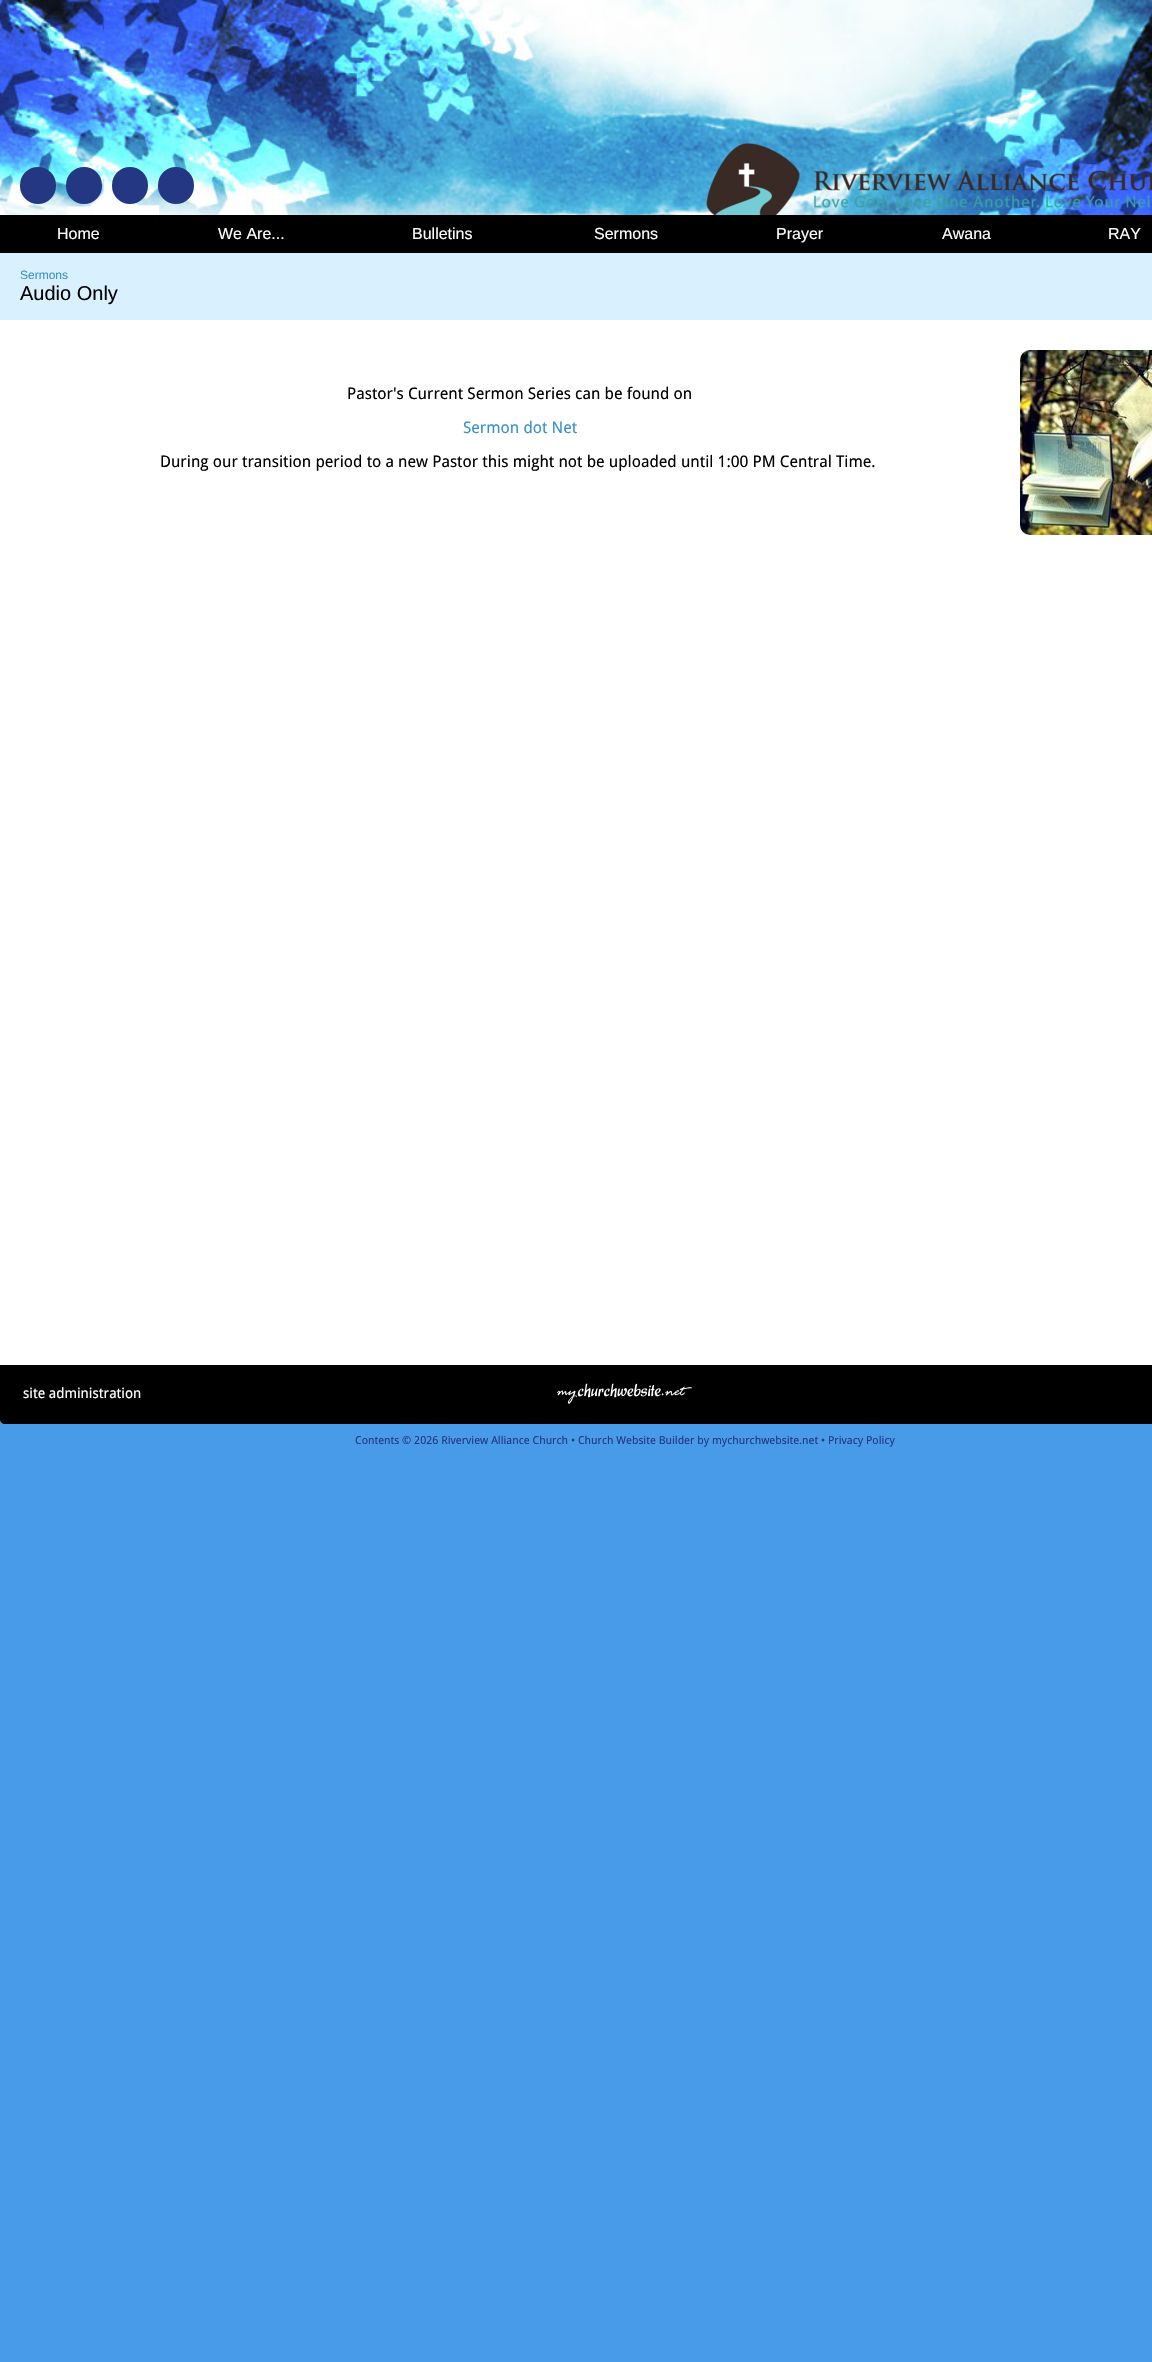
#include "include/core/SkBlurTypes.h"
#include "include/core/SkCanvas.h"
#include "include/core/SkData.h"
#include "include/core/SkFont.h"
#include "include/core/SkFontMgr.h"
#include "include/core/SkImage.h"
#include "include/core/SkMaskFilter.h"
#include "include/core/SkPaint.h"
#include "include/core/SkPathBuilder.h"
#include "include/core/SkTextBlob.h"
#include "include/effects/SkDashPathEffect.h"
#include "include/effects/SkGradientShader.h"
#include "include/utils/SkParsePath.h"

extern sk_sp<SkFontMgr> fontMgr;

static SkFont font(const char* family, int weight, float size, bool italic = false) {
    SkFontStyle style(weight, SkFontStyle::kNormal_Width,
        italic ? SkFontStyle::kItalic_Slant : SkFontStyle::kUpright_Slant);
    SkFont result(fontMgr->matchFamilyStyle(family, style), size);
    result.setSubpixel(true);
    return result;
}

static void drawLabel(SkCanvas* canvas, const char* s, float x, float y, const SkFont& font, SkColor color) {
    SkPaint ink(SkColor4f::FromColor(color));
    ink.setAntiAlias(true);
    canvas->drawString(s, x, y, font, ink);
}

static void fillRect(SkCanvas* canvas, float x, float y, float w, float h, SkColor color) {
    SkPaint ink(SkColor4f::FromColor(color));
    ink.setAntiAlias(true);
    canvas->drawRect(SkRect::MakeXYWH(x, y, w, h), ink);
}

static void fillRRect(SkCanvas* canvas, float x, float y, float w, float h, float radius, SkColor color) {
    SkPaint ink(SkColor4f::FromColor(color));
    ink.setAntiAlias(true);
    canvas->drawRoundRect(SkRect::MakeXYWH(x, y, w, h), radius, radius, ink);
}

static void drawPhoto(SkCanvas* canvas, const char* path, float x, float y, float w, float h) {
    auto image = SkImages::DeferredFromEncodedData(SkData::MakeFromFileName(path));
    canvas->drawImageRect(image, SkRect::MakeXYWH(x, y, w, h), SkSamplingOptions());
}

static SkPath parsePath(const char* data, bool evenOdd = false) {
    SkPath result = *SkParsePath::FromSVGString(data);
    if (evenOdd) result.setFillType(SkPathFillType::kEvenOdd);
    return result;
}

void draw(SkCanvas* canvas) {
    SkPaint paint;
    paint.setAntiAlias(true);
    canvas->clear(0xFF489BE8);
    drawPhoto(canvas, "assets/img1.png", 0, 0, 1152, 215);
    fillRRect(canvas, 20, 167, 36, 37, 18, 0xFF243782);
    fillRRect(canvas, 66, 167, 36, 37, 18, 0xFF243782);
    fillRRect(canvas, 112, 167, 36, 37, 18, 0xFF243782);
    fillRRect(canvas, 158, 167, 36, 37, 18, 0xFF243782);
    drawPhoto(canvas, "assets/img2.png", 706, 143, 446, 72);
    fillRect(canvas, 0, 215, 1152, 38, 0xFF000000);
    SkFont font1 = font("Liberation Sans", 400, 16);
    drawLabel(canvas, "Home", 57, 239, font1, 0xFFFFFFFF);
    drawLabel(canvas, "We Are...", 218, 239, font1, 0xFFFFFFFF);
    drawLabel(canvas, "Bulletins", 412, 239, font1, 0xFFFFFFFF);
    drawLabel(canvas, "Sermons", 594, 239, font1, 0xFFFFFFFF);
    drawLabel(canvas, "Prayer", 776, 239, font1, 0xFFFFFFFF);
    drawLabel(canvas, "Awana", 942, 239, font1, 0xFFFFFFFF);
    drawLabel(canvas, "RAY", 1108, 239, font1, 0xFFFFFFFF);
    fillRect(canvas, 0, 320, 1152, 1045, 0xFFFFFFFF);
    fillRect(canvas, 0, 253, 1152, 67, 0xFFD9F0FF);
    SkFont font2 = font("Liberation Sans", 400, 12);
    drawLabel(canvas, "Sermons", 20, 279, font2, 0xFF3A91CA);
    SkFont font3 = font("Liberation Sans", 400, 20);
    drawLabel(canvas, "Audio Only", 20, 300, font3, 0xFF000000);
    SkFont font4 = font("Droid Sans", 400, 16);
    drawLabel(canvas, "Pastor's Current Sermon Series can be found on", 347, 399, font4, 0xFF000000);
    drawPhoto(canvas, "assets/img3.png", 1020, 350, 132, 185);
    drawLabel(canvas, "Sermon dot Net", 463, 433, font4, 0xFF3A91CA);
    drawLabel(canvas, "During our transition period to a new Pastor this might not be uploaded until 1:00 PM Central Time.", 160, 467, font4, 0xFF000000);
    paint.setColor(0xFF000000);
    canvas->drawPath(parsePath("M0 1365H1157V1419C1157 1422 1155 1424 1152 1424H5C2 1424 0 1422 0 1419Z"), paint);
    SkFont font5 = font("Droid Sans", 400, 14);
    drawLabel(canvas, "site administration", 23, 1398, font5, 0xFFFFFFFF);
    drawPhoto(canvas, "assets/img4.png", 557, 1383, 135, 21);
    SkFont font6 = font("Droid Sans", 400, 11);
    drawLabel(canvas, "Contents © 2026 Riverview Alliance Church • Church Website Builder by mychurchwebsite.net • Privacy Policy", 355, 1444, font6, 0xFF243782);
}
